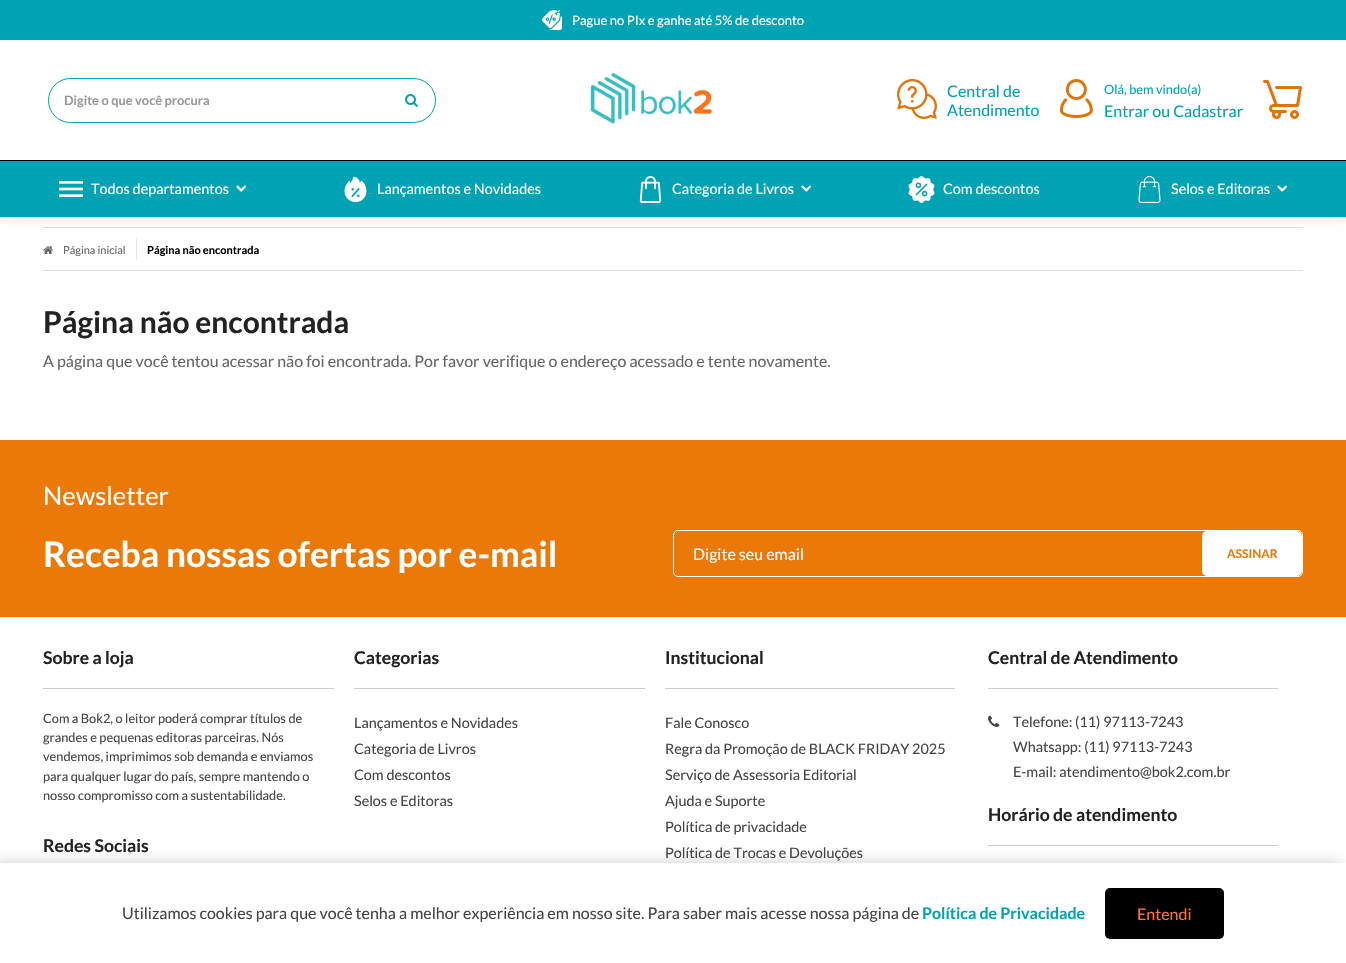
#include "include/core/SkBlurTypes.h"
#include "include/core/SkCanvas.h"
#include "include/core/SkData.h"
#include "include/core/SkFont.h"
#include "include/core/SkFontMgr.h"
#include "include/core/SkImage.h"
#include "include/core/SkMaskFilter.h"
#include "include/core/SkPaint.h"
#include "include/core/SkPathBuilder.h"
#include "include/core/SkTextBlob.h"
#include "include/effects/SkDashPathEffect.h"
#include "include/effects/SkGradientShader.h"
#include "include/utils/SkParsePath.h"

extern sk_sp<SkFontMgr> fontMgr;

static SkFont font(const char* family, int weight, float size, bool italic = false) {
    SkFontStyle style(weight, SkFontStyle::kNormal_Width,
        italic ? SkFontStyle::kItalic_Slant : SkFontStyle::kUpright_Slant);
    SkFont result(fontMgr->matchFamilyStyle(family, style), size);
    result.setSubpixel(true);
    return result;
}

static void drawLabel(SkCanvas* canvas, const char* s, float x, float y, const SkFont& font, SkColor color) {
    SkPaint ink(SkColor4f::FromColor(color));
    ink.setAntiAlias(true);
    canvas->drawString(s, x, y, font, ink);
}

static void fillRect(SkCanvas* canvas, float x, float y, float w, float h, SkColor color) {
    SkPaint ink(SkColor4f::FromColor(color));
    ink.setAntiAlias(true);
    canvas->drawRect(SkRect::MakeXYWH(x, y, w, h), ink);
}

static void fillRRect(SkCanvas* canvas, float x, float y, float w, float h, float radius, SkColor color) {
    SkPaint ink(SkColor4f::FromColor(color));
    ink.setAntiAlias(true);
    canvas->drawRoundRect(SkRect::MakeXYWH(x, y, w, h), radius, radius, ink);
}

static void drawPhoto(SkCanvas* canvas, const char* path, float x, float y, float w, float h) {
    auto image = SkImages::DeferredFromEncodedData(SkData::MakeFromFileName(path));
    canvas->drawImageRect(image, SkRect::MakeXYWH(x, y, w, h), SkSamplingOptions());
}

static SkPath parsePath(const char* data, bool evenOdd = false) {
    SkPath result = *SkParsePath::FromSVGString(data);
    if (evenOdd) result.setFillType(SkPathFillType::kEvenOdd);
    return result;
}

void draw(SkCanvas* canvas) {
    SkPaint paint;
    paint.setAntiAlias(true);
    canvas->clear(0xFFFFFFFF);
    fillRect(canvas, 0, 0, 1346, 40, 0xFF00A3B4);
    drawPhoto(canvas, "assets/img1.png", 542, 10, 20, 20);
    SkFont font1 = font("Lato", 400, 13);
    drawLabel(canvas, "Pague no PIx e ganhe até 5% de desconto", 572, 25, font1, 0xFFFFFFFF);
    paint.setStroke(true);
    paint.setStrokeWidth(1);
    paint.setColor(0xFF00A3B4);
    canvas->drawRoundRect(SkRect::MakeXYWH(48.5f, 78.5f, 387, 44), 22, 22, paint);
    SkFont font2 = font("Lato", 700, 12.8f);
    drawLabel(canvas, "Digite o que você procura", 64, 105, font2, 0xFF999999);
    drawPhoto(canvas, "assets/img2.png", 405, 94, 13, 13);
    drawPhoto(canvas, "assets/img3.png", 590, 72, 123, 52);
    drawPhoto(canvas, "assets/img4.png", 897, 79, 40, 40);
    SkFont font3 = font("Lato", 400, 16);
    drawLabel(canvas, "Central de", 947, 97, font3, 0xFF00A3B4);
    drawLabel(canvas, "Atendimento", 947, 116, font3, 0xFF00A3B4);
    drawPhoto(canvas, "assets/img5.png", 1059, 79, 34, 39);
    SkFont font4 = font("Lato", 400, 12.8f);
    drawLabel(canvas, "Olá, bem vindo(a)", 1104, 94, font4, 0xFF00A3B4);
    drawLabel(canvas, "Entrar ou Cadastrar", 1104, 117, font3, 0xFF00A3B4);
    drawPhoto(canvas, "assets/img6.png", 1263, 80, 39, 40);
    paint.setStroke(false);
    paint.setColor(0xFFDDDDDD);
    paint.setMaskFilter(SkMaskFilter::MakeBlur(kNormal_SkBlurStyle, 6));
    canvas->drawRect(SkRect::MakeXYWH(6, 171, 1334, 45), paint);
    paint.setMaskFilter(nullptr);
    fillRect(canvas, 0, 161, 1346, 56, 0xFF00A3B4);
    fillRect(canvas, 0, 160, 1346, 1, 0xFF000000);
    drawPhoto(canvas, "assets/img7.png", 59, 181, 24, 16);
    SkFont font5 = font("Lato", 400, 14.4f);
    drawLabel(canvas, "Todos departamentos", 91, 194, font5, 0xFFFFFFFF);
    drawPhoto(canvas, "assets/img8.png", 236, 185, 10, 7);
    drawPhoto(canvas, "assets/img9.png", 344, 176, 23, 27);
    drawLabel(canvas, "Lançamentos e Novidades", 377, 194, font5, 0xFFFFFFFF);
    drawPhoto(canvas, "assets/img10.png", 639, 176, 23, 27);
    drawLabel(canvas, "Categoria de Livros", 672, 194, font5, 0xFFFFFFFF);
    drawPhoto(canvas, "assets/img8.png", 801, 185, 10, 7);
    drawPhoto(canvas, "assets/img11.png", 908, 176, 27, 27);
    drawLabel(canvas, "Com descontos", 943, 194, font5, 0xFFFFFFFF);
    drawPhoto(canvas, "assets/img12.png", 1138, 176, 23, 27);
    drawLabel(canvas, "Selos e Editoras", 1171, 194, font5, 0xFFFFFFFF);
    drawPhoto(canvas, "assets/img8.png", 1277, 185, 10, 7);
    fillRect(canvas, 43, 227, 1260, 1, 0xFFDDDDDD);
    fillRect(canvas, 43, 270, 1260, 1, 0xFFDEDEDE);
    drawPhoto(canvas, "assets/img13.png", 43, 246, 10, 8);
    SkFont font6 = font("Lato", 400, 11);
    drawLabel(canvas, "Página inicial", 63, 254, font6, 0xFF666666);
    fillRect(canvas, 136, 238, 1, 22, 0xFFE6E6E6);
    SkFont font7 = font("Lato", 700, 11);
    drawLabel(canvas, "Página não encontrada", 147, 254, font7, 0xFF000000);
    SkFont font8 = font("Lato", 700, 30);
    drawLabel(canvas, "Página não encontrada", 43, 333, font8, 0xFF222222);
    drawLabel(canvas, "A página que você tentou acessar não foi encontrada. Por favor verifique o endereço acessado e tente novamente.", 43, 367, font3, 0xFF666666);
    fillRect(canvas, 0, 440, 1346, 177, 0xFFEB7909);
    SkFont font9 = font("Lato", 400, 25.5f);
    drawLabel(canvas, "Newsletter", 43, 505, font9, 0xFFFFFFFF);
    SkFont font10 = font("Lato", 700, 35.25f);
    drawLabel(canvas, "Receba nossas ofertas por e-mail", 43, 567, font10, 0xFFFFFFFF);
    paint.setStroke(true);
    paint.setColor(0xFFFFFFFF);
    canvas->drawRoundRect(SkRect::MakeXYWH(673.5f, 530.5f, 629, 46), 4.5f, 4.5f, paint);
    drawLabel(canvas, "Digite seu email", 693, 560, font3, 0xFFFFFFFF);
    canvas->save();
    canvas->clipPath(parsePath("M678 531H1298C1300 531 1302 533 1302 535V572C1302 574 1300 576 1298 576H678C676 576 674 574 674 572V535C674 533 676 531 678 531Z"), true);
    fillRRect(canvas, 1202, 531, 100, 45, 5, 0xFFFFFFFF);
    canvas->restore();
    SkFont font11 = font("Lato", 700, 12);
    drawLabel(canvas, "ASSINAR", 1227, 558, font11, 0xFFEB7909);
    fillRect(canvas, 43, 688, 291, 1, 0xFFCCCCCC);
    SkFont font12 = font("Lato", 700, 17.6f);
    drawLabel(canvas, "Sobre a loja", 43, 664, font12, 0xFF222222);
    drawLabel(canvas, "Com a Bok2, o leitor poderá comprar títulos de", 43, 723, font4, 0xFF444444);
    drawLabel(canvas, "grandes e pequenas editoras parceiras. Nós", 43, 742, font4, 0xFF444444);
    drawLabel(canvas, "vendemos, imprimimos sob demanda e enviamos", 43, 761, font4, 0xFF444444);
    drawLabel(canvas, "para qualquer lugar do país, sempre mantendo o", 43, 781, font4, 0xFF444444);
    drawLabel(canvas, "nosso compromisso com a sustentabilidade.", 43, 800, font4, 0xFF444444);
    drawLabel(canvas, "Redes Sociais", 43, 852, font12, 0xFF222222);
    fillRect(canvas, 354, 688, 291, 1, 0xFFCCCCCC);
    drawLabel(canvas, "Categorias", 354, 664, font12, 0xFF222222);
    drawLabel(canvas, "Lançamentos e Novidades", 354, 728, font5, 0xFF444444);
    drawLabel(canvas, "Categoria de Livros", 354, 754, font5, 0xFF444444);
    drawLabel(canvas, "Com descontos", 354, 780, font5, 0xFF444444);
    drawLabel(canvas, "Selos e Editoras", 354, 806, font5, 0xFF444444);
    fillRect(canvas, 665, 688, 290, 1, 0xFFCCCCCC);
    drawLabel(canvas, "Institucional", 665, 664, font12, 0xFF222222);
    drawLabel(canvas, "Fale Conosco", 665, 728, font5, 0xFF444444);
    drawLabel(canvas, "Regra da Promoção de BLACK FRIDAY 2025", 665, 754, font5, 0xFF444444);
    drawLabel(canvas, "Serviço de Assessoria Editorial", 665, 780, font5, 0xFF444444);
    drawLabel(canvas, "Ajuda e Suporte", 665, 806, font5, 0xFF444444);
    drawLabel(canvas, "Política de privacidade", 665, 832, font5, 0xFF444444);
    drawLabel(canvas, "Política de Trocas e Devoluções", 665, 858, font5, 0xFF444444);
    fillRect(canvas, 988, 688, 290, 1, 0xFFCCCCCC);
    drawLabel(canvas, "Central de Atendimento", 988, 664, font12, 0xFF222222);
    drawPhoto(canvas, "assets/img14.png", 988, 715, 12, 12);
    drawLabel(canvas, "Telefone: (11) 97113-7243", 1013, 727, font5, 0xFF444444);
    drawLabel(canvas, "Whatsapp: (11) 97113-7243", 1013, 752, font5, 0xFF444444);
    drawLabel(canvas, "E-mail: atendimento@bok2.com.br", 1013, 777, font5, 0xFF444444);
    fillRect(canvas, 988, 845, 290, 1, 0xFFCCCCCC);
    drawLabel(canvas, "Horário de atendimento", 988, 821, font12, 0xFF222222);
    paint.setStroke(false);
    paint.setColor(0x33000000);
    paint.setMaskFilter(SkMaskFilter::MakeBlur(kNormal_SkBlurStyle, 6));
    canvas->drawRect(SkRect::MakeXYWH(-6, 863, 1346, 100), paint);
    paint.setMaskFilter(nullptr);
    fillRect(canvas, 0, 863, 1346, 100, 0xFFFFFFFF);
    drawLabel(canvas, "Utilizamos cookies para que você tenha a melhor experiência em nosso site. Para saber mais acesse nossa página de", 122, 919, font3, 0xFF444444);
    SkFont font13 = font("Lato", 700, 16);
    drawLabel(canvas, "Política de Privacidade", 922, 919, font13, 0xFF00A3B4);
    fillRRect(canvas, 1105, 888, 119, 51, 5, 0xFF000000);
    drawLabel(canvas, "Entendi", 1137, 920, font3, 0xFFFF772E);
}
